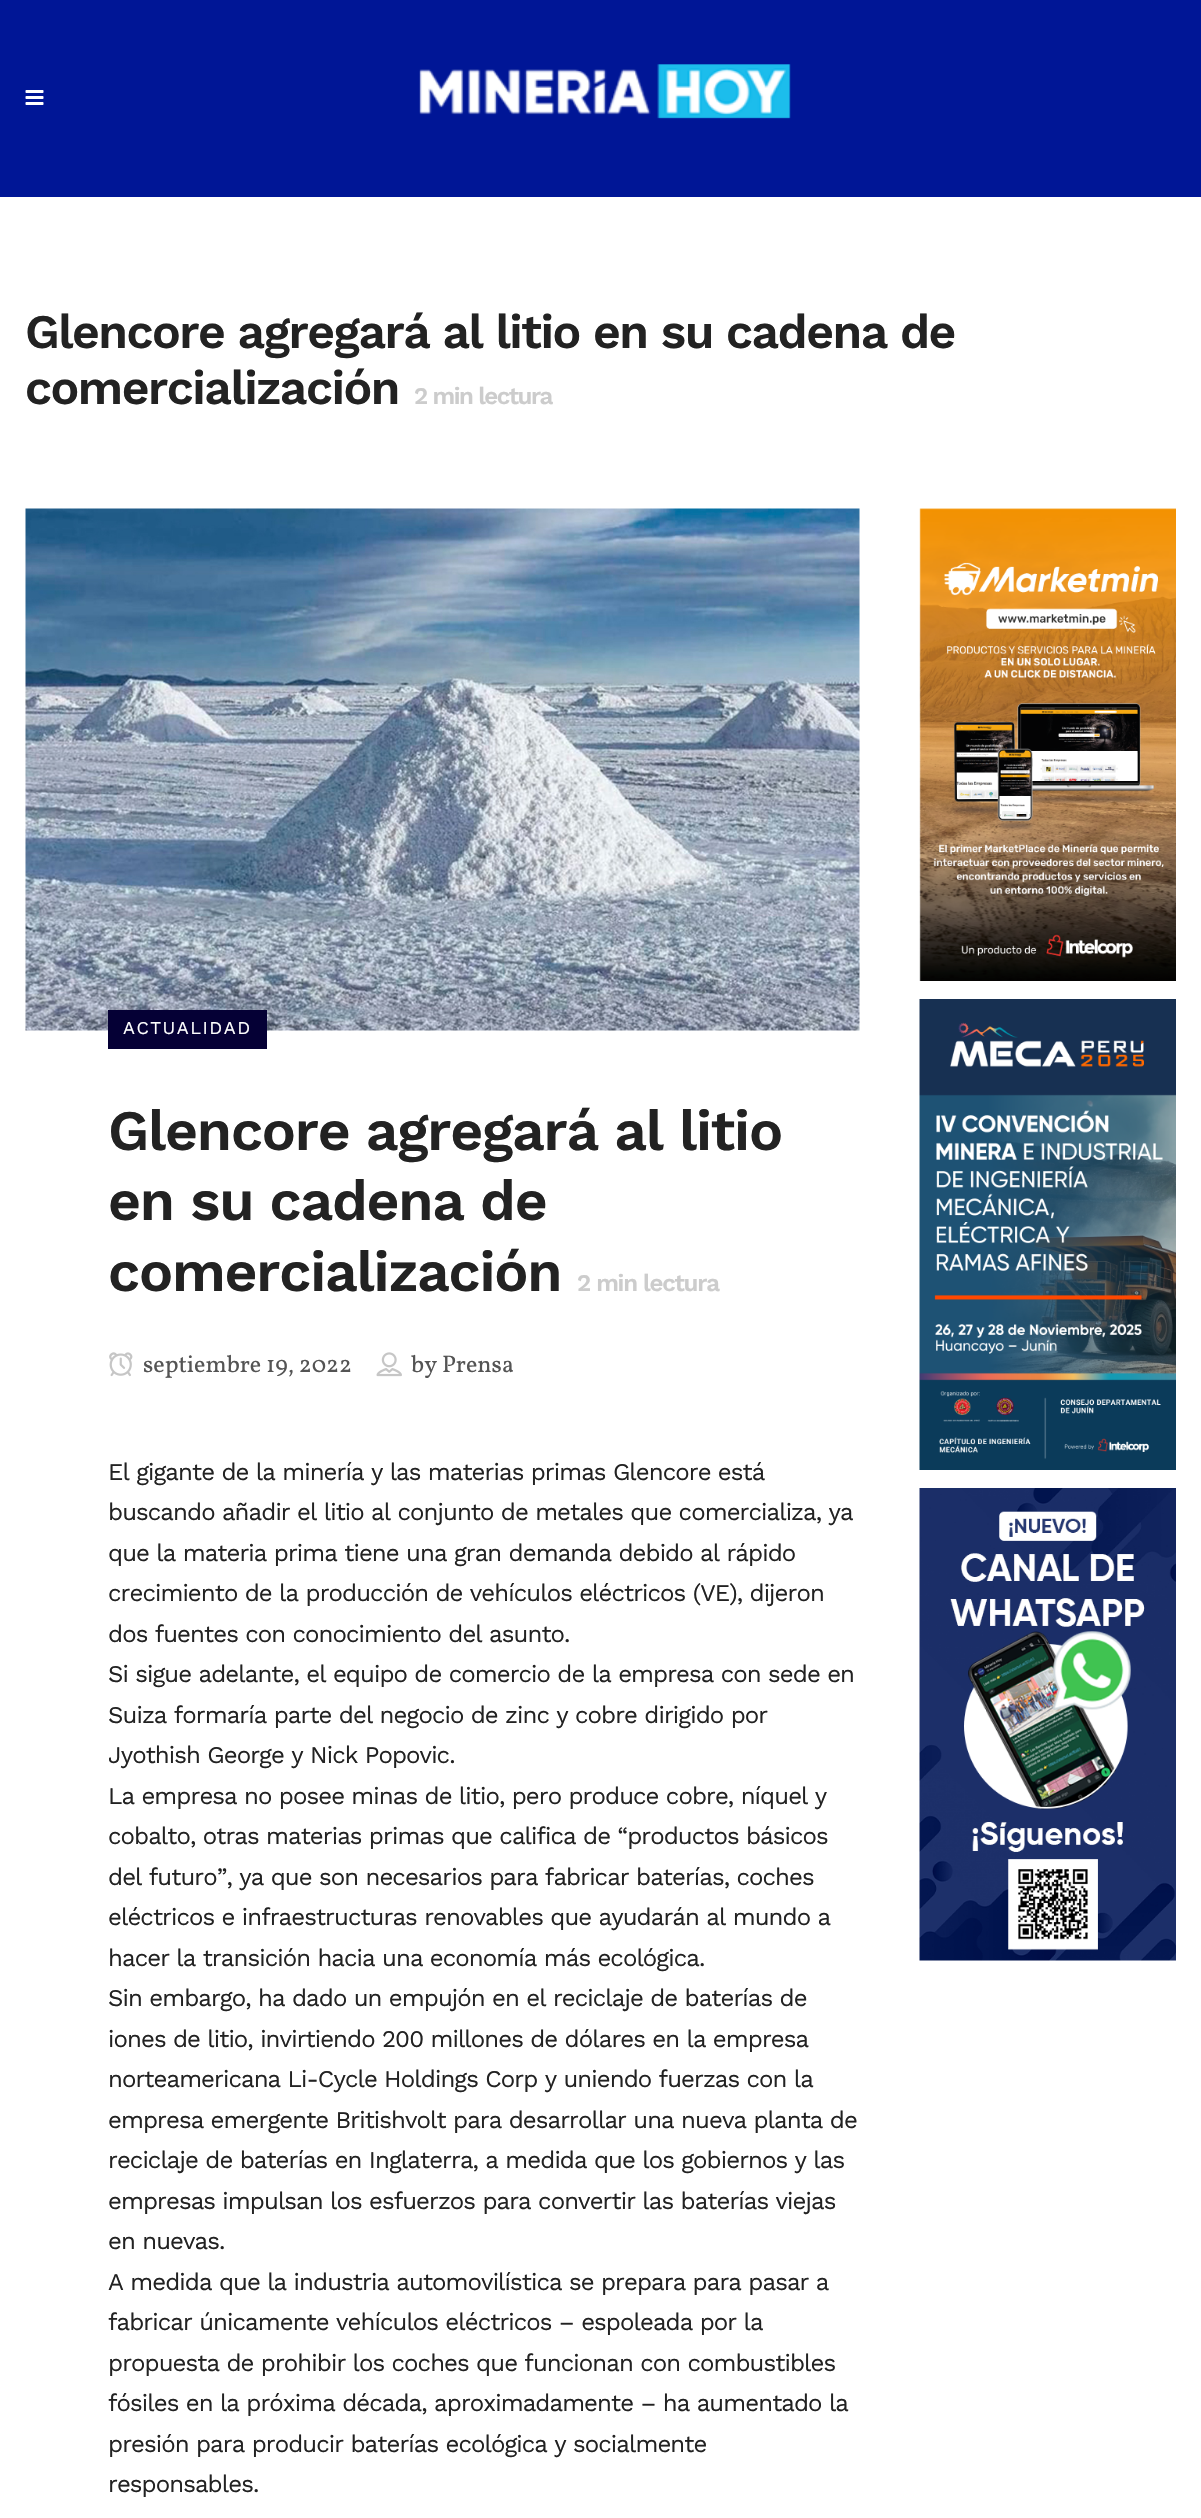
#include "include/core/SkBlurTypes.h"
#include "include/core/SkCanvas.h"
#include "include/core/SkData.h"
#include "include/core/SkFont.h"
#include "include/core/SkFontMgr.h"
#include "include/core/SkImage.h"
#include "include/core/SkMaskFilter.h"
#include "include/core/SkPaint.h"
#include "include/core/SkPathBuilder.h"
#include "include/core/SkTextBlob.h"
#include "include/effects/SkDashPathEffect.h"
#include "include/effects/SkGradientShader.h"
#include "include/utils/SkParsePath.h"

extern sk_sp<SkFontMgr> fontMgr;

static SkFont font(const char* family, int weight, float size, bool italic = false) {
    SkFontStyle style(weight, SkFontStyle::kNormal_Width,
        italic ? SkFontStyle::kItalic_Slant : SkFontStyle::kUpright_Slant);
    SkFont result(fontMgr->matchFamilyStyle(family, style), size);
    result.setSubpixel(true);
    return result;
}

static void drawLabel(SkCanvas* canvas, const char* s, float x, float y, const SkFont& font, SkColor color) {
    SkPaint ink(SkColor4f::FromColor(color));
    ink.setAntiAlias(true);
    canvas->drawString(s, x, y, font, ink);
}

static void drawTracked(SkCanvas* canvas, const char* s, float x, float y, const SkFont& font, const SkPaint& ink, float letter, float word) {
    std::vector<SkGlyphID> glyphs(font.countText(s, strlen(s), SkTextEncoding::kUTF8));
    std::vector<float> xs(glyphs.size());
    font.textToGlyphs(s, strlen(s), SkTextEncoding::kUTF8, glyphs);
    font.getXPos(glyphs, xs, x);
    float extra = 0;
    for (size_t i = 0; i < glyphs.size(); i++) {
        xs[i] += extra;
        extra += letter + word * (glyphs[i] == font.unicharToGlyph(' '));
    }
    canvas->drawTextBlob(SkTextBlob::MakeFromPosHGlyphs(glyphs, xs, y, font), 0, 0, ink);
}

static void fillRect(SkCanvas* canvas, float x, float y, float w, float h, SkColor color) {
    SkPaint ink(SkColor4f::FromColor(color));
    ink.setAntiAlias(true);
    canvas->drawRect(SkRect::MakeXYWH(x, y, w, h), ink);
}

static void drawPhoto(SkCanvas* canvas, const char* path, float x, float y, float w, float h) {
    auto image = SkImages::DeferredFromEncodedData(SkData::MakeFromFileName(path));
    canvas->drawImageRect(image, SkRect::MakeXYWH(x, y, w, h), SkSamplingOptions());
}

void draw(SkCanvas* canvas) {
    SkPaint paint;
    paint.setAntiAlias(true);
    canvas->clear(0xFFFFFFFF);
    fillRect(canvas, 0, 0, 1201, 197, 0xFF001696);
    drawPhoto(canvas, "assets/img1.png", 25, 90, 19, 15);
    drawPhoto(canvas, "assets/img2.png", 419, 64, 372, 55);
    SkFont font1 = font("Work Sans", 600, 48);
    paint.setColor(0xFF222222);
    drawTracked(canvas, "Glencore agregará al litio en su cadena de", 25, 348, font1, paint, -1.5f, 0);
    drawTracked(canvas, "comercialización", 25, 404, font1, paint, -1.5f, 0);
    SkFont font2 = font("Work Sans", 600, 24);
    paint.setColor(0xFFCCCCCC);
    drawTracked(canvas, "2 min lectura", 414, 404, font2, paint, -1.5f, 0);
    drawPhoto(canvas, "assets/img3.png", 25, 508, 835, 523);
    fillRect(canvas, 108, 1010, 159, 39, 0xFF050035);
    SkFont font3 = font("Work Sans", 400, 18);
    paint.setColor(0xFFFFFFFF);
    drawTracked(canvas, "ACTUALIDAD", 123, 1034, font3, paint, 1.5f, 0);
    SkFont font4 = font("Work Sans", 600, 57);
    paint.setColor(0xFF222222);
    drawTracked(canvas, "Glencore agregará al litio", 108, 1150, font4, paint, -1.2f, 0);
    drawTracked(canvas, "en su cadena de", 108, 1220, font4, paint, -1.2f, 0);
    drawTracked(canvas, "comercialización", 108, 1291, font4, paint, -1.2f, 0);
    paint.setColor(0xFFCCCCCC);
    drawTracked(canvas, "2 min lectura", 577, 1291, font2, paint, -1.2f, 0);
    drawPhoto(canvas, "assets/img4.png", 109, 1352, 24, 25);
    SkFont font5 = font("Vollkorn", 400, 24);
    drawLabel(canvas, "septiembre 19, 2022", 143, 1372, font5, 0xFF545454);
    drawPhoto(canvas, "assets/img5.png", 376, 1352, 26, 25);
    drawLabel(canvas, "by Prensa", 411, 1372, font5, 0xFF545454);
    SkFont font6 = font("Work Sans", 400, 24);
    paint.setColor(0xFF222222);
    drawTracked(canvas, "El gigante de la minería y las materias primas Glencore está", 108, 1480, font6, paint, -0.9f, 0);
    drawTracked(canvas, "buscando añadir el litio al conjunto de metales que comercializa, ya", 108, 1520, font6, paint, -0.9f, 0);
    drawTracked(canvas, "que la materia prima tiene una gran demanda debido al rápido", 108, 1561, font6, paint, -0.9f, 0);
    drawTracked(canvas, "crecimiento de la producción de vehículos eléctricos (VE), dijeron", 108, 1601, font6, paint, -0.9f, 0);
    drawTracked(canvas, "dos fuentes con conocimiento del asunto.", 108, 1642, font6, paint, -0.9f, 0);
    drawTracked(canvas, "Si sigue adelante, el equipo de comercio de la empresa con sede en", 108, 1682, font6, paint, -0.9f, 0);
    drawTracked(canvas, "Suiza formaría parte del negocio de zinc y cobre dirigido por", 108, 1723, font6, paint, -0.9f, 0);
    drawTracked(canvas, "Jyothish George y Nick Popovic.", 108, 1763, font6, paint, -0.9f, 0);
    drawTracked(canvas, "La empresa no posee minas de litio, pero produce cobre, níquel y", 108, 1804, font6, paint, -0.9f, 0);
    drawTracked(canvas, "cobalto, otras materias primas que califica de “productos básicos", 108, 1844, font6, paint, -0.9f, 0);
    drawTracked(canvas, "del futuro”, ya que son necesarios para fabricar baterías, coches", 108, 1885, font6, paint, -0.9f, 0);
    drawTracked(canvas, "eléctricos e infraestructuras renovables que ayudarán al mundo a", 108, 1925, font6, paint, -0.9f, 0);
    drawTracked(canvas, "hacer la transición hacia una economía más ecológica.", 108, 1966, font6, paint, -0.9f, 0);
    drawTracked(canvas, "Sin embargo, ha dado un empujón en el reciclaje de baterías de", 108, 2006, font6, paint, -0.9f, 0);
    drawTracked(canvas, "iones de litio, invirtiendo 200 millones de dólares en la empresa", 108, 2047, font6, paint, -0.9f, 0);
    drawTracked(canvas, "norteamericana Li-Cycle Holdings Corp y uniendo fuerzas con la", 108, 2087, font6, paint, -0.9f, 0);
    drawTracked(canvas, "empresa emergente Britishvolt para desarrollar una nueva planta de", 108, 2128, font6, paint, -0.9f, 0);
    drawTracked(canvas, "reciclaje de baterías en Inglaterra, a medida que los gobiernos y las", 108, 2168, font6, paint, -0.9f, 0);
    drawTracked(canvas, "empresas impulsan los esfuerzos para convertir las baterías viejas", 108, 2209, font6, paint, -0.9f, 0);
    drawTracked(canvas, "en nuevas.", 108, 2249, font6, paint, -0.9f, 0);
    drawTracked(canvas, "A medida que la industria automovilística se prepara para pasar a", 108, 2290, font6, paint, -0.9f, 0);
    drawTracked(canvas, "fabricar únicamente vehículos eléctricos – espoleada por la", 108, 2330, font6, paint, -0.9f, 0);
    drawTracked(canvas, "propuesta de prohibir los coches que funcionan con combustibles", 108, 2371, font6, paint, -0.9f, 0);
    drawTracked(canvas, "fósiles en la próxima década, aproximadamente – ha aumentado la", 108, 2411, font6, paint, -0.9f, 0);
    drawTracked(canvas, "presión para producir baterías ecológica y socialmente", 108, 2452, font6, paint, -0.9f, 0);
    drawTracked(canvas, "responsables.", 108, 2492, font6, paint, -0.9f, 0);
    drawPhoto(canvas, "assets/img6.png", 919, 508, 257, 473);
    drawPhoto(canvas, "assets/img7.png", 919, 999, 257, 471);
    drawPhoto(canvas, "assets/img8.png", 919, 1488, 257, 473);
}
